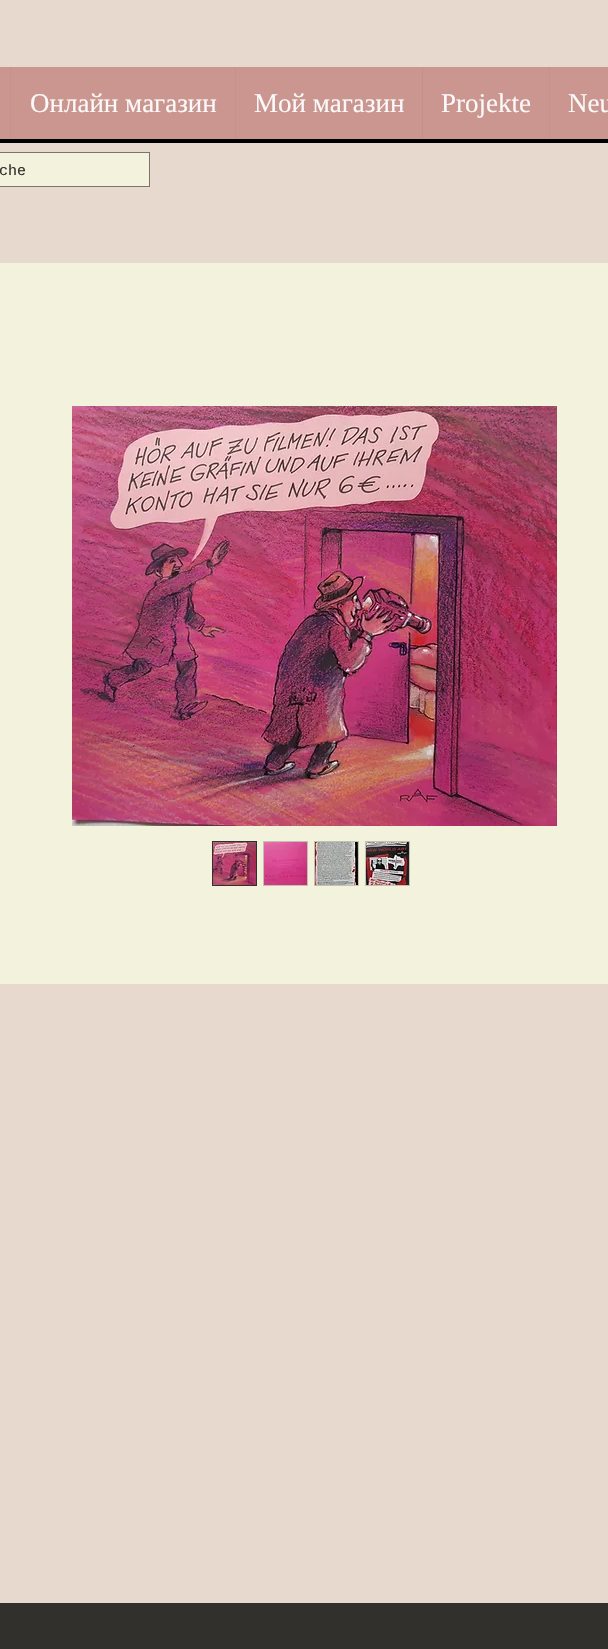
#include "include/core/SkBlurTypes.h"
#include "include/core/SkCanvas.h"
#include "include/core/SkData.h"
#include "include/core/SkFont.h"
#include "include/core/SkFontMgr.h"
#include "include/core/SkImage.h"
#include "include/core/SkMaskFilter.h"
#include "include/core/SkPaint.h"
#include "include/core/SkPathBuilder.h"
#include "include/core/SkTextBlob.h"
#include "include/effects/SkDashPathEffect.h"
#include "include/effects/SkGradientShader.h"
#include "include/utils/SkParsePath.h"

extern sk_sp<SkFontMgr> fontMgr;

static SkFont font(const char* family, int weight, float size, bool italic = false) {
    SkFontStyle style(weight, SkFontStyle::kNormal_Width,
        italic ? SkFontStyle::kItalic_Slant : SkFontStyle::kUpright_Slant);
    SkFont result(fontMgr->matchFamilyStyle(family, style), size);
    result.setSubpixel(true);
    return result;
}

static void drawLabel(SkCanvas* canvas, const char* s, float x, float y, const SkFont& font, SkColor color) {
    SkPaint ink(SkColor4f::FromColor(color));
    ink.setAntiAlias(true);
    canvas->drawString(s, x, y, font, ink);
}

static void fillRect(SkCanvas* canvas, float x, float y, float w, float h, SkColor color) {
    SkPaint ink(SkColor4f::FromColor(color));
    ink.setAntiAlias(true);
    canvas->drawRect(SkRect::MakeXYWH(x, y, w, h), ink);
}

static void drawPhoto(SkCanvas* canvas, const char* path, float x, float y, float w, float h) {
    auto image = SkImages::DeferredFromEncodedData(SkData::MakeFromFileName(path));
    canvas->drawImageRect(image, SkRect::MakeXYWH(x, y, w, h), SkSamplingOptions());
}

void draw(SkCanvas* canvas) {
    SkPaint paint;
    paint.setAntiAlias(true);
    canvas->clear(0xFFE8D9CF);
    fillRect(canvas, 0, 139, 608, 4, 0xFF000000);
    fillRect(canvas, 0, 67, 608, 72, 0xFFCB968F);
    fillRect(canvas, 10, 67, 1, 72, 0xFFC4928B);
    SkFont font1 = font("Liberation Serif", 400, 27);
    drawLabel(canvas, "Онлайн магазин", 30, 112, font1, 0xFFF9F9F9);
    fillRect(canvas, 235, 67, 1, 72, 0xFFC4928B);
    drawLabel(canvas, "Мой магазин", 254, 112, font1, 0xFFF9F9F9);
    fillRect(canvas, 422, 67, 1, 72, 0xFFC4928B);
    drawLabel(canvas, "Projekte", 441, 112, font1, 0xFFF9F9F9);
    fillRect(canvas, 549, 67, 1, 72, 0xFFC4928B);
    drawLabel(canvas, "Neu", 568, 112, font1, 0xFFF9F9F9);
    paint.setStroke(true);
    paint.setStrokeWidth(1);
    paint.setColor(0xFF7A746D);
    canvas->drawRect(SkRect::MakeXYWH(-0.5f, 152.5f, 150, 34), paint);
    fillRect(canvas, 0, 153, 149, 33, 0xFFF3F2DC);
    SkFont font2 = font("Liberation Mono", 400, 15);
    drawLabel(canvas, "che", -1, 175, font2, 0xFF31302C);
    fillRect(canvas, 0, 263, 608, 721, 0xFFF3F2DC);
    drawPhoto(canvas, "assets/img1.png", 72, 406, 485, 420);
    paint.setColor(0xFF31302C);
    canvas->drawRect(SkRect::MakeXYWH(212.5f, 841.5f, 44, 44), paint);
    drawPhoto(canvas, "assets/img2.png", 213, 842, 43, 43);
    fillRect(canvas, 263, 841, 45, 45, 0xFFC2C2B0);
    drawPhoto(canvas, "assets/img3.png", 264, 842, 43, 43);
    fillRect(canvas, 314, 841, 45, 45, 0xFFC2C2B0);
    drawPhoto(canvas, "assets/img4.png", 315, 842, 43, 43);
    fillRect(canvas, 365, 841, 45, 45, 0xFFC2C2B0);
    drawPhoto(canvas, "assets/img5.png", 366, 842, 43, 43);
    fillRect(canvas, 0, 1603, 608, 46, 0xFF31302C);
}
